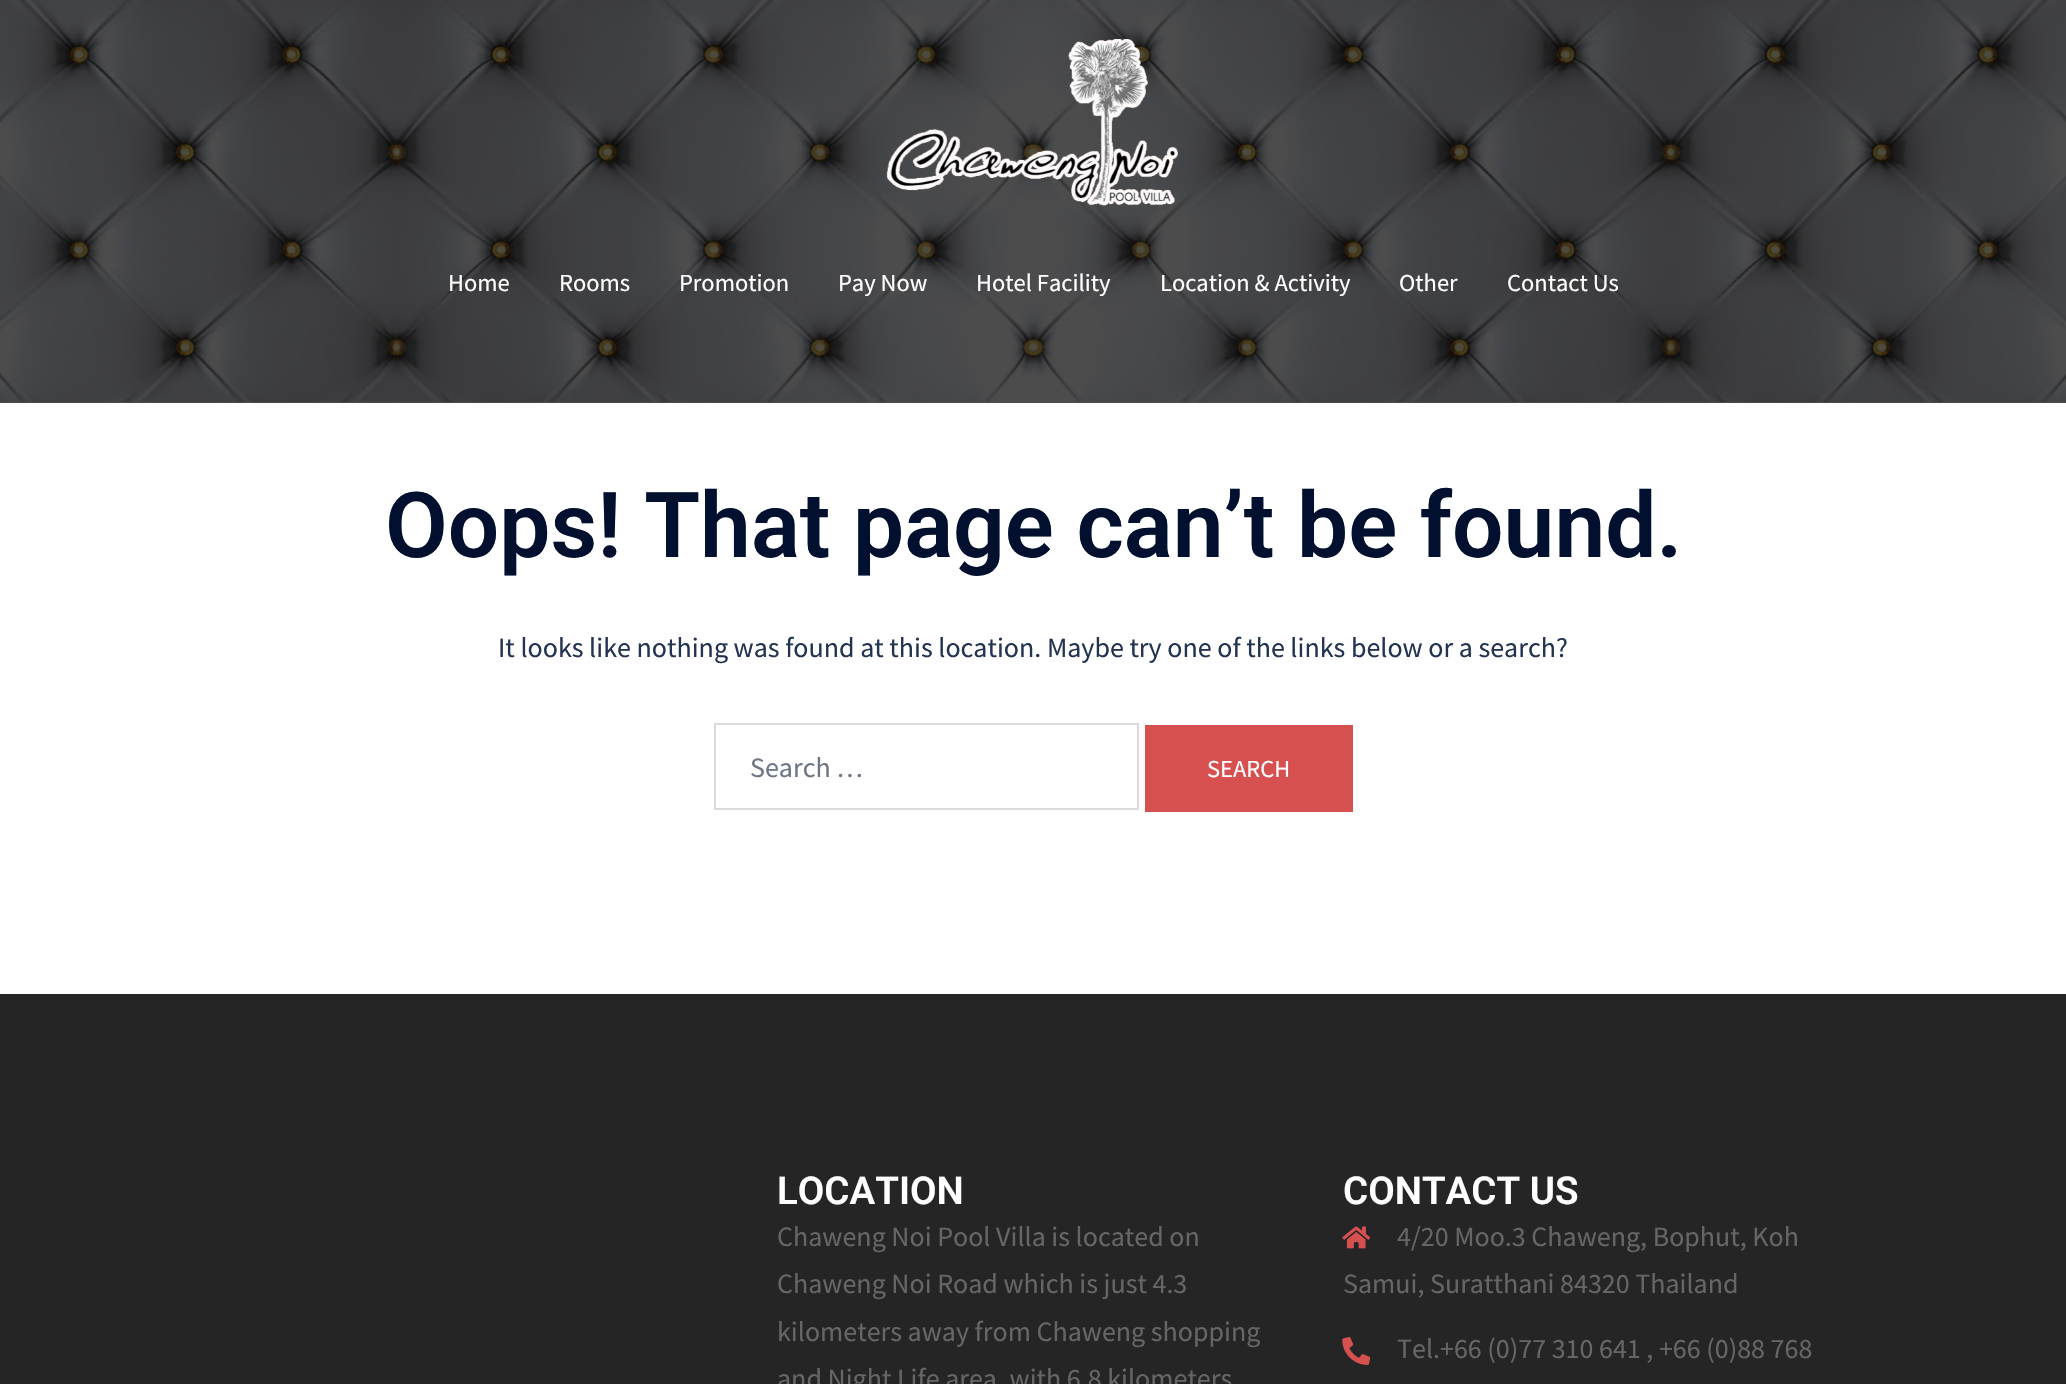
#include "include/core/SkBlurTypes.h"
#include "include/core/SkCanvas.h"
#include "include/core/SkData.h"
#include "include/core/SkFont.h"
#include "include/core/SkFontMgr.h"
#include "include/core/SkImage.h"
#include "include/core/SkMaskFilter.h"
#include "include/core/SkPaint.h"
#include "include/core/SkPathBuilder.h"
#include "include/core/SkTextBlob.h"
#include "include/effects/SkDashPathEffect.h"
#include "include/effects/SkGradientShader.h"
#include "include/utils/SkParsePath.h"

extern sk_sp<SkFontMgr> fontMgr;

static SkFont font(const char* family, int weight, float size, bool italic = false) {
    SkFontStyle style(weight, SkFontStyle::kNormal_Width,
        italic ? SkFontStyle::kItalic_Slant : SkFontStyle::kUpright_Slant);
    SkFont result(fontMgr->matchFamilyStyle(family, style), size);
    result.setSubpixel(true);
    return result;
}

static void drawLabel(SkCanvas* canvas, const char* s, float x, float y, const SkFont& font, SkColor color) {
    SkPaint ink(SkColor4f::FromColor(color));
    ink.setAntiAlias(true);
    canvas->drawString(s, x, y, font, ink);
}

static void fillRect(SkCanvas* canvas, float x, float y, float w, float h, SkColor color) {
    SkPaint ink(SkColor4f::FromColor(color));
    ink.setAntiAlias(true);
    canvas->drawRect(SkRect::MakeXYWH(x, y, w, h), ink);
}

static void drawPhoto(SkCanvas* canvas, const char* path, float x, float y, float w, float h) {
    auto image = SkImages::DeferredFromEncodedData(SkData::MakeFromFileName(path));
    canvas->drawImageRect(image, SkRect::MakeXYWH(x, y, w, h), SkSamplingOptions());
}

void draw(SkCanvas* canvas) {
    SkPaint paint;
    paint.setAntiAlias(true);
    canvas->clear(0xFFFFFFFF);
    fillRect(canvas, 0, 402, 2066, 1, 0xFF4D4D4D);
    drawPhoto(canvas, "assets/img1.png", 0, 0, 2066, 403);
    drawPhoto(canvas, "assets/img2.png", 886, 38, 292, 168);
    SkFont font1 = font("Source Sans Pro", 400, 24.5f);
    drawLabel(canvas, "Home", 448, 291, font1, 0xFFFFFFFF);
    drawLabel(canvas, "Rooms", 559, 291, font1, 0xFFFFFFFF);
    drawLabel(canvas, "Promotion", 679, 291, font1, 0xFFFFFFFF);
    drawLabel(canvas, "Pay Now", 838, 291, font1, 0xFFFFFFFF);
    drawLabel(canvas, "Hotel Facility", 976, 291, font1, 0xFFFFFFFF);
    drawLabel(canvas, "Location & Activity", 1160, 291, font1, 0xFFFFFFFF);
    drawLabel(canvas, "Other", 1399, 291, font1, 0xFFFFFFFF);
    drawLabel(canvas, "Contact Us", 1507, 291, font1, 0xFFFFFFFF);
    SkFont font2 = font("Roboto", 600, 91);
    drawLabel(canvas, "Oops! That page can’t be found.", 385, 557, font2, 0xFF00102E);
    SkFont font3 = font("Source Sans Pro", 400, 28);
    drawLabel(canvas, "It looks like nothing was found at this location. Maybe try one of the links below or a search?", 498, 657, font3, 0xFF233452);
    paint.setStroke(true);
    paint.setStrokeWidth(2);
    paint.setColor(0xFFDBDBDB);
    canvas->drawRect(SkRect::MakeXYWH(715, 724, 423, 85), paint);
    drawLabel(canvas, "Search …", 750, 777, font3, 0xFF6D7685);
    fillRect(canvas, 1145, 725, 208, 87, 0xFFD65050);
    drawLabel(canvas, "SEARCH", 1207, 777, font1, 0xFFFFFFFF);
    fillRect(canvas, 0, 994, 2066, 390, 0xFF252525);
    SkFont font4 = font("Roboto", 600, 38.5f);
    drawLabel(canvas, "LOCATION", 777, 1204, font4, 0xFFFFFFFF);
    drawLabel(canvas, "Chaweng Noi Pool Villa is located on", 777, 1246, font3, 0xFF666666);
    drawLabel(canvas, "Chaweng Noi Road which is just 4.3", 777, 1293, font3, 0xFF666666);
    drawLabel(canvas, "kilometers away from Chaweng shopping", 777, 1341, font3, 0xFF666666);
    drawLabel(canvas, "and Night Life area, with 6.8 kilometers", 777, 1388, font3, 0xFF666666);
    drawLabel(canvas, "CONTACT US", 1343, 1204, font4, 0xFFFFFFFF);
    drawPhoto(canvas, "assets/img3.png", 1342, 1226, 28, 23);
    drawLabel(canvas, "4/20 Moo.3 Chaweng, Bophut, Koh", 1397, 1246, font3, 0xFF666666);
    drawLabel(canvas, "Samui, Suratthani 84320 Thailand", 1343, 1293, font3, 0xFF666666);
    drawPhoto(canvas, "assets/img4.png", 1342, 1337, 28, 28);
    drawLabel(canvas, "Tel.+66 (0)77 310 641 , +66 (0)88 768", 1397, 1358, font3, 0xFF666666);
}
